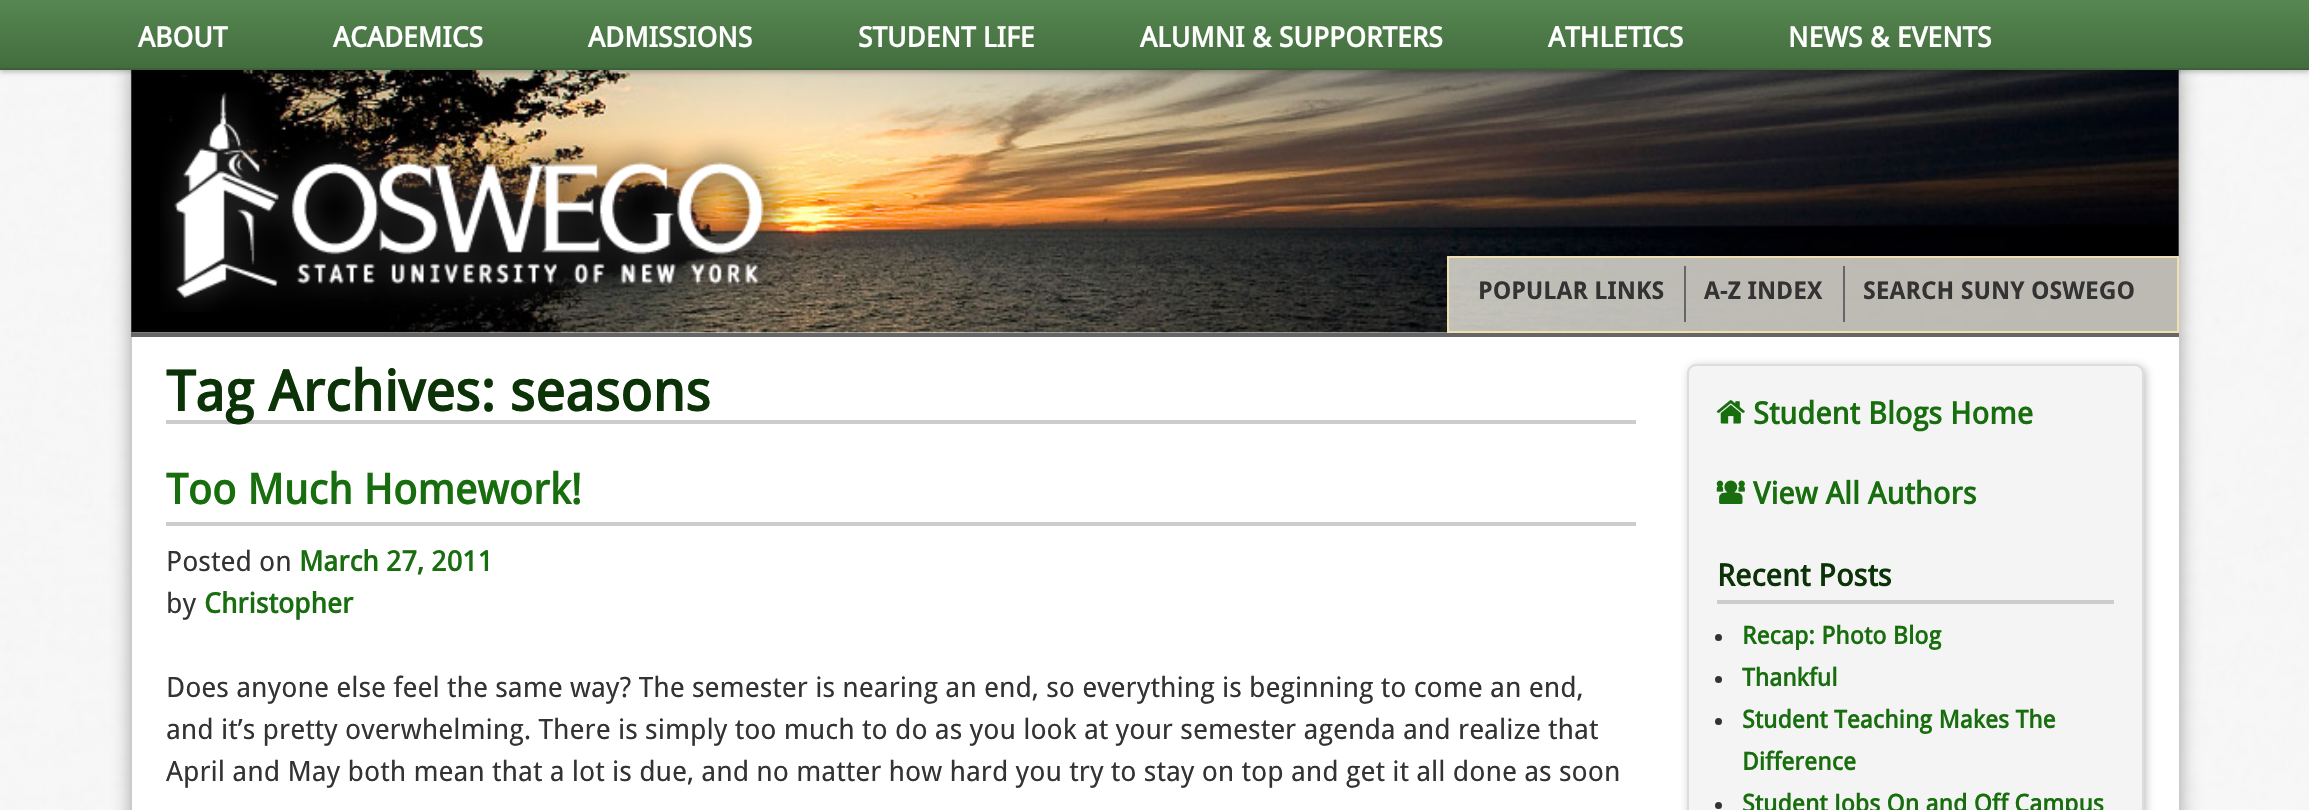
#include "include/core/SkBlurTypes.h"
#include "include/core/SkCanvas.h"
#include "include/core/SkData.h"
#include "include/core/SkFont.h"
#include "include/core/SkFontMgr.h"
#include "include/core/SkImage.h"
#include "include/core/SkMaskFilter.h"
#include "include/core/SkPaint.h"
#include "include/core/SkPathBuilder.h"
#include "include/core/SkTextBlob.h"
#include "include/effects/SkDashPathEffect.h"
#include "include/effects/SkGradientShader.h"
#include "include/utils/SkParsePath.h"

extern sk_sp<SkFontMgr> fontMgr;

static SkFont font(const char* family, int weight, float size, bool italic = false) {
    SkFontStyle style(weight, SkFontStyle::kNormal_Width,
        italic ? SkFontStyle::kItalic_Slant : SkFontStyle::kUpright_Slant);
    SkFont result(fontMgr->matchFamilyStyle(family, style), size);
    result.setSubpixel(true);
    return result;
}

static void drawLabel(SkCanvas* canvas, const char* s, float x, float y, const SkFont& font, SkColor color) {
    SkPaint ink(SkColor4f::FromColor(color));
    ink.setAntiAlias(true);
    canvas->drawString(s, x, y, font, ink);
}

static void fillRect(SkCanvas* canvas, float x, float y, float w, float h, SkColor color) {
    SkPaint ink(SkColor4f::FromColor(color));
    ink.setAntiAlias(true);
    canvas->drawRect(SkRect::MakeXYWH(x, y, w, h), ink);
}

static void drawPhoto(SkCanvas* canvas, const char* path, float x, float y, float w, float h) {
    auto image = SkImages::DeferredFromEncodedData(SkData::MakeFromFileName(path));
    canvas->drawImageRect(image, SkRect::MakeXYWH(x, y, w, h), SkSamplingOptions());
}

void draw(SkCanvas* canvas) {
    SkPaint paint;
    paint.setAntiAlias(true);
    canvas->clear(0xFFFFFFFF);
    drawPhoto(canvas, "assets/img1.png", 0, 70, 2309, 740);
    paint.setColor(0x805B625A);
    paint.setMaskFilter(SkMaskFilter::MakeBlur(kNormal_SkBlurStyle, 9));
    canvas->drawRect(SkRect::MakeXYWH(130, 68, 2051, 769), paint);
    paint.setMaskFilter(nullptr);
    paint.setColor(0xFFFFFFFF);
    canvas->drawRect(SkRect::MakeXYWH(131, 69, 2049, 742), paint);
    paint.setStroke(true);
    paint.setStrokeWidth(2);
    paint.setColor(0xFFCCCCCC);
    canvas->drawRect(SkRect::MakeXYWH(131, 69, 2049, 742), paint);
    drawPhoto(canvas, "assets/img2.png", 131, 70, 2048, 263);
    paint.setStroke(false);
    paint.setColor(0x40000000);
    paint.setMaskFilter(SkMaskFilter::MakeBlur(kNormal_SkBlurStyle, 2.5f));
    canvas->drawRect(SkRect::MakeXYWH(0, 2, 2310, 70), paint);
    paint.setMaskFilter(nullptr);
    {
        const SkColor colors[] = {0xFF568751, 0xFF426C3D};
        const float stops[] = {0, 1};
        const SkPoint ends[] = {{1155, 0}, {1155, 70}};
        paint.setShader(SkGradientShader::MakeLinear(ends, colors, stops, 2, SkTileMode::kClamp));
        paint.setAlpha(255);
    }
    canvas->drawRect(SkRect::MakeXYWH(0, 0, 2309, 68), paint);
    fillRect(canvas, 0, 68, 2309, 2, 0xFF3B6237);
    SkFont font1 = font("Droid Sans", 700, 28);
    drawLabel(canvas, "ABOUT", 138, 47, font1, 0xFFFFFFFF);
    drawLabel(canvas, "ACADEMICS", 333, 47, font1, 0xFFFFFFFF);
    drawLabel(canvas, "ADMISSIONS", 588, 47, font1, 0xFFFFFFFF);
    drawLabel(canvas, "STUDENT LIFE", 858, 47, font1, 0xFFFFFFFF);
    drawLabel(canvas, "ALUMNI & SUPPORTERS", 1140, 47, font1, 0xFFFFFFFF);
    drawLabel(canvas, "ATHLETICS", 1548, 47, font1, 0xFFFFFFFF);
    drawLabel(canvas, "NEWS & EVENTS", 1788, 47, font1, 0xFFFFFFFF);
    fillRect(canvas, 131, 333, 2048, 4, 0xFF666666);
    drawPhoto(canvas, "assets/img3.png", 160, 92, 628, 220);
    paint.setShader(nullptr);
    paint.setColor(0xBFFBF8ED);
    canvas->drawRect(SkRect::MakeXYWH(1448, 257, 730, 75), paint);
    paint.setStroke(true);
    paint.setColor(0xFFF0DFB2);
    canvas->drawRect(SkRect::MakeXYWH(1448, 257, 730, 75), paint);
    fillRect(canvas, 1684, 266, 2, 56, 0xFF666666);
    SkFont font2 = font("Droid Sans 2", 700, 24.5f);
    drawLabel(canvas, "POPULAR LINKS", 1478, 299, font2, 0xFF333333);
    fillRect(canvas, 1843, 266, 2, 56, 0xFF666666);
    drawLabel(canvas, "A-Z INDEX", 1704, 299, font2, 0xFF333333);
    drawLabel(canvas, "SEARCH SUNY OSWEGO", 1863, 299, font2, 0xFF333333);
    fillRect(canvas, 166, 420, 1470, 4, 0xFFCCCCCC);
    SkFont font3 = font("Droid Sans", 700, 56);
    drawLabel(canvas, "Tag Archives: seasons", 166, 411, font3, 0xFF0B3307);
    fillRect(canvas, 166, 522, 1470, 4, 0xFFCCCCCC);
    SkFont font4 = font("Droid Sans", 700, 42);
    drawLabel(canvas, "Too Much Homework!", 166, 504, font4, 0xFF186E0E);
    SkFont font5 = font("Droid Sans", 400, 28);
    drawLabel(canvas, "Posted on", 166, 571, font5, 0xFF333333);
    drawLabel(canvas, "March 27, 2011", 299, 571, font1, 0xFF186E0E);
    drawLabel(canvas, "by", 166, 613, font5, 0xFF333333);
    drawLabel(canvas, "Christopher", 204, 613, font1, 0xFF186E0E);
    drawLabel(canvas, "Does anyone else feel the same way? The semester is nearing an end, so everything is beginning to come an end,", 166, 697, font5, 0xFF333333);
    drawLabel(canvas, "and it’s pretty overwhelming. There is simply too much to do as you look at your semester agenda and realize that", 166, 739, font5, 0xFF333333);
    drawLabel(canvas, "April and May both mean that a lot is due, and no matter how hard you try to stay on top and get it all done as soon", 166, 781, font5, 0xFF333333);
    paint.setStroke(false);
    paint.setColor(0xFFC0C0C0);
    paint.setMaskFilter(SkMaskFilter::MakeBlur(kNormal_SkBlurStyle, 4.5f));
    canvas->drawRoundRect(SkRect::MakeXYWH(1689, 366, 457, 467), 9, 9, paint);
    paint.setMaskFilter(nullptr);
    paint.setColor(0xFFF4F4F4);
    canvas->drawRoundRect(SkRect::MakeXYWH(1688, 365, 455, 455), 8, 8, paint);
    paint.setStroke(true);
    paint.setColor(0xFFDDDDDD);
    canvas->drawRoundRect(SkRect::MakeXYWH(1688, 365, 455, 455), 8, 8, paint);
    drawPhoto(canvas, "assets/img4.png", 1716, 400, 29, 24);
    SkFont font6 = font("Droid Sans", 700, 30.6f);
    drawLabel(canvas, "Student Blogs Home", 1753, 424, font6, 0xFF186E0E);
    drawPhoto(canvas, "assets/img5.png", 1716, 480, 29, 24);
    drawLabel(canvas, "View All Authors", 1753, 504, font6, 0xFF186E0E);
    fillRect(canvas, 1717, 600, 397, 4, 0xFFCCCCCC);
    drawLabel(canvas, "Recent Posts", 1717, 586, font6, 0xFF0B3307);
    paint.setStroke(false);
    paint.setColor(0xFF333333);
    canvas->drawCircle(1718.5f, 637.5f, 3.5f, paint);
    SkFont font7 = font("Droid Sans", 700, 24.5f);
    drawLabel(canvas, "Recap: Photo Blog", 1742, 644, font7, 0xFF186E0E);
    canvas->drawCircle(1718.5f, 679.5f, 3.5f, paint);
    drawLabel(canvas, "Thankful", 1742, 686, font7, 0xFF186E0E);
    canvas->drawCircle(1718.5f, 721.5f, 3.5f, paint);
    drawLabel(canvas, "Student Teaching Makes The", 1742, 728, font7, 0xFF186E0E);
    drawLabel(canvas, "Difference", 1742, 770, font7, 0xFF186E0E);
    canvas->drawCircle(1718.5f, 805.5f, 3.5f, paint);
    drawLabel(canvas, "Student Jobs On and Off Campus", 1742, 812, font7, 0xFF186E0E);
}
